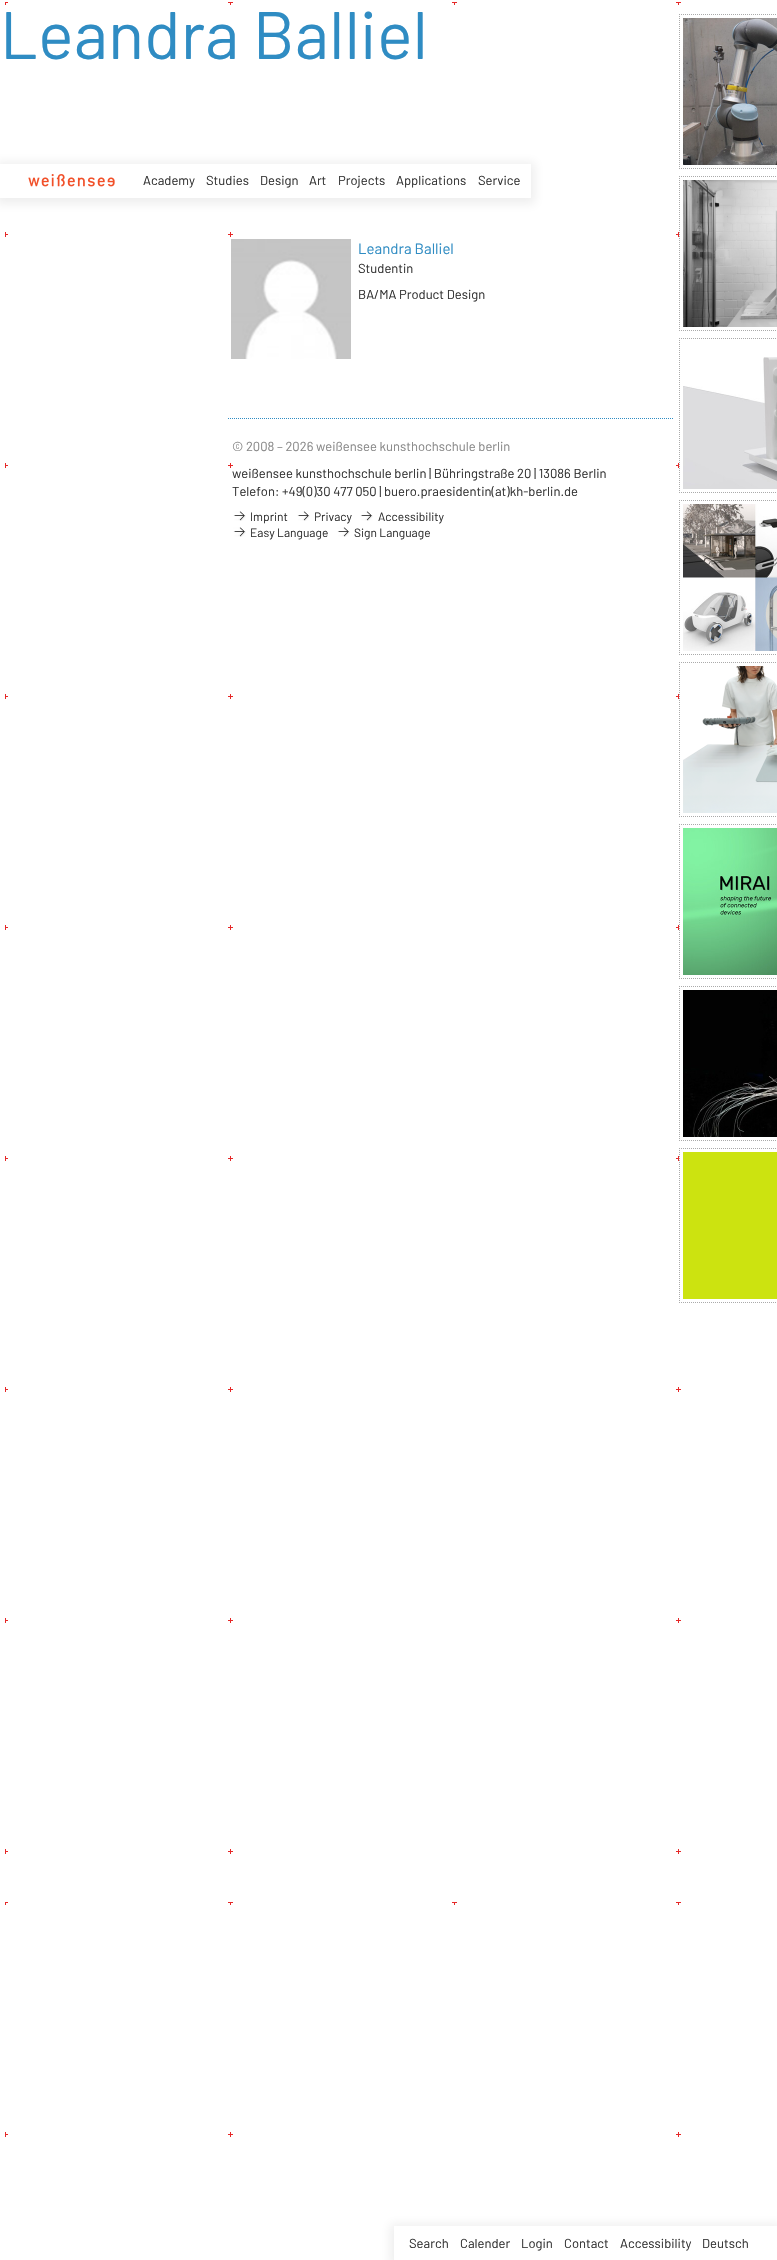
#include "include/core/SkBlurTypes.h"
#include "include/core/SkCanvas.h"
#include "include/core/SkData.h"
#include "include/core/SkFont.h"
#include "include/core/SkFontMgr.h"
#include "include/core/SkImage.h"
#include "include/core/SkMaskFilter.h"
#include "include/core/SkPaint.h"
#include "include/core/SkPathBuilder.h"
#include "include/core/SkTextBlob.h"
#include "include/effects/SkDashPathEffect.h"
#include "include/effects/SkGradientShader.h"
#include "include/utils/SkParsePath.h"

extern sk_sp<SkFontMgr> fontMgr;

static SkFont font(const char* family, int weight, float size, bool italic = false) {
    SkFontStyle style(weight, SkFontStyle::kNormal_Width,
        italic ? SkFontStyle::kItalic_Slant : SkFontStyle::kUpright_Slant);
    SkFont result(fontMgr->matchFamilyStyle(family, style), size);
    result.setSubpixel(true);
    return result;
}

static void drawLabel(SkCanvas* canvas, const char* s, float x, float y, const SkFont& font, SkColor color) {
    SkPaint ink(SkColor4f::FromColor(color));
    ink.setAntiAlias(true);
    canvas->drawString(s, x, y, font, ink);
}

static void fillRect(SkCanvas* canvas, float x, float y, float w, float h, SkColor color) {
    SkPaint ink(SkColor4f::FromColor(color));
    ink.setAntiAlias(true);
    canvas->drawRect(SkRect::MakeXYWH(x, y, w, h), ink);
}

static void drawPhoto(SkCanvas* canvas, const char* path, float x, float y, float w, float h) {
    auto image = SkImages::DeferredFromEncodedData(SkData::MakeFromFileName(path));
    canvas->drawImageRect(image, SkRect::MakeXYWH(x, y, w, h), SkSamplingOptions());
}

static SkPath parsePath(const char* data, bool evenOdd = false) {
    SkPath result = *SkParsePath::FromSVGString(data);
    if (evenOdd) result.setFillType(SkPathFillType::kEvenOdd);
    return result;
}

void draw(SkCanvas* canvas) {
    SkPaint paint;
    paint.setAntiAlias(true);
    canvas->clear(0xFFFFFFFF);
    drawPhoto(canvas, "assets/img1.png", 5, 2, 676, 2135);
    SkFont font1 = font("Barlow", 400, 67);
    drawLabel(canvas, "Leandra Balliel", 0, 59, font1, 0xFF2F8CC3);
    fillRect(canvas, 679, 234, 2, 925, 0xFFFFFFFF);
    paint.setStroke(true);
    paint.setStrokeWidth(1);
    paint.setColor(0xFFAAAAAA);
    paint.setPathEffect(SkDashPathEffect::Make({{1, 1}}, 0));
    canvas->drawPath(parsePath("M679 14.5H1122"), paint);
    paint.setPathEffect(nullptr);
    paint.setPathEffect(SkDashPathEffect::Make({{1, 1}}, 0));
    canvas->drawPath(parsePath("M679 168.5H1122"), paint);
    paint.setPathEffect(nullptr);
    paint.setPathEffect(SkDashPathEffect::Make({{1, 1}}, 0));
    canvas->drawPath(parsePath("M679.5 14V169"), paint);
    paint.setPathEffect(nullptr);
    drawPhoto(canvas, "assets/img2.png", 683, 18, 94, 147);
    paint.setPathEffect(SkDashPathEffect::Make({{1, 1}}, 0));
    canvas->drawPath(parsePath("M679 176.5H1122"), paint);
    paint.setPathEffect(nullptr);
    paint.setPathEffect(SkDashPathEffect::Make({{1, 1}}, 0));
    canvas->drawPath(parsePath("M679 330.5H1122"), paint);
    paint.setPathEffect(nullptr);
    paint.setPathEffect(SkDashPathEffect::Make({{1, 1}}, 0));
    canvas->drawPath(parsePath("M679.5 176V331"), paint);
    paint.setPathEffect(nullptr);
    drawPhoto(canvas, "assets/img3.png", 683, 180, 94, 147);
    paint.setPathEffect(SkDashPathEffect::Make({{1, 1}}, 0));
    canvas->drawPath(parsePath("M679 338.5H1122"), paint);
    paint.setPathEffect(nullptr);
    paint.setPathEffect(SkDashPathEffect::Make({{1, 1}}, 0));
    canvas->drawPath(parsePath("M679 492.5H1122"), paint);
    paint.setPathEffect(nullptr);
    paint.setPathEffect(SkDashPathEffect::Make({{1, 1}}, 0));
    canvas->drawPath(parsePath("M679.5 338V493"), paint);
    paint.setPathEffect(nullptr);
    drawPhoto(canvas, "assets/img4.png", 683, 357, 94, 132);
    paint.setPathEffect(SkDashPathEffect::Make({{1, 1}}, 0));
    canvas->drawPath(parsePath("M679 500.5H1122"), paint);
    paint.setPathEffect(nullptr);
    paint.setPathEffect(SkDashPathEffect::Make({{1, 1}}, 0));
    canvas->drawPath(parsePath("M679 654.5H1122"), paint);
    paint.setPathEffect(nullptr);
    paint.setPathEffect(SkDashPathEffect::Make({{1, 1}}, 0));
    canvas->drawPath(parsePath("M679.5 500V655"), paint);
    paint.setPathEffect(nullptr);
    drawPhoto(canvas, "assets/img5.png", 683, 504, 94, 147);
    paint.setPathEffect(SkDashPathEffect::Make({{1, 1}}, 0));
    canvas->drawPath(parsePath("M679 662.5H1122"), paint);
    paint.setPathEffect(nullptr);
    paint.setPathEffect(SkDashPathEffect::Make({{1, 1}}, 0));
    canvas->drawPath(parsePath("M679 816.5H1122"), paint);
    paint.setPathEffect(nullptr);
    paint.setPathEffect(SkDashPathEffect::Make({{1, 1}}, 0));
    canvas->drawPath(parsePath("M679.5 662V817"), paint);
    paint.setPathEffect(nullptr);
    drawPhoto(canvas, "assets/img6.png", 683, 666, 94, 147);
    paint.setPathEffect(SkDashPathEffect::Make({{1, 1}}, 0));
    canvas->drawPath(parsePath("M679 824.5H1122"), paint);
    paint.setPathEffect(nullptr);
    paint.setPathEffect(SkDashPathEffect::Make({{1, 1}}, 0));
    canvas->drawPath(parsePath("M679 978.5H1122"), paint);
    paint.setPathEffect(nullptr);
    paint.setPathEffect(SkDashPathEffect::Make({{1, 1}}, 0));
    canvas->drawPath(parsePath("M679.5 824V979"), paint);
    paint.setPathEffect(nullptr);
    drawPhoto(canvas, "assets/img7.png", 683, 828, 94, 147);
    paint.setPathEffect(SkDashPathEffect::Make({{1, 1}}, 0));
    canvas->drawPath(parsePath("M679 986.5H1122"), paint);
    paint.setPathEffect(nullptr);
    paint.setPathEffect(SkDashPathEffect::Make({{1, 1}}, 0));
    canvas->drawPath(parsePath("M679 1140.5H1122"), paint);
    paint.setPathEffect(nullptr);
    paint.setPathEffect(SkDashPathEffect::Make({{1, 1}}, 0));
    canvas->drawPath(parsePath("M679.5 986V1141"), paint);
    paint.setPathEffect(nullptr);
    drawPhoto(canvas, "assets/img8.png", 683, 990, 94, 147);
    paint.setPathEffect(SkDashPathEffect::Make({{1, 1}}, 0));
    canvas->drawPath(parsePath("M679 1148.5H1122"), paint);
    paint.setPathEffect(nullptr);
    paint.setPathEffect(SkDashPathEffect::Make({{1, 1}}, 0));
    canvas->drawPath(parsePath("M679 1302.5H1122"), paint);
    paint.setPathEffect(nullptr);
    paint.setPathEffect(SkDashPathEffect::Make({{1, 1}}, 0));
    canvas->drawPath(parsePath("M679.5 1148V1303"), paint);
    paint.setPathEffect(nullptr);
    fillRect(canvas, 683, 1152, 94, 147, 0xFFCCE310);
    drawPhoto(canvas, "assets/img9.png", 231, 239, 120, 120);
    SkFont font2 = font("Barlow", 400, 15);
    drawLabel(canvas, "Leandra Balliel", 358, 254, font2, 0xFF2F8CC3);
    SkFont font3 = font("Barlow", 400, 13);
    drawLabel(canvas, "Studentin", 358, 273, font3, 0xFF333333);
    drawLabel(canvas, "BA/MA Product Design", 358, 299, font3, 0xFF333333);
    canvas->save();
    canvas->clipPath(parsePath("M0 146H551V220H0ZM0 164H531V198H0Z", true), true);
    paint.setStroke(false);
    paint.setColor(0x12121212);
    paint.setMaskFilter(SkMaskFilter::MakeBlur(kNormal_SkBlurStyle, 5));
    canvas->drawRect(SkRect::MakeXYWH(-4, 162, 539, 42), paint);
    paint.setMaskFilter(nullptr);
    canvas->restore();
    drawPhoto(canvas, "assets/img10.png", 28, 174, 87, 13);
    drawLabel(canvas, "Academy", 143, 185, font3, 0xFF333333);
    drawLabel(canvas, "Studies", 206, 185, font3, 0xFF333333);
    drawLabel(canvas, "Design", 260, 185, font3, 0xFF333333);
    drawLabel(canvas, "Art", 309, 185, font3, 0xFF333333);
    drawLabel(canvas, "Projects", 338, 185, font3, 0xFF333333);
    drawLabel(canvas, "Applications", 396, 185, font3, 0xFF333333);
    drawLabel(canvas, "Service", 478, 185, font3, 0xFF333333);
    canvas->save();
    canvas->clipPath(parsePath("M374 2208H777V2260H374ZM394 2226H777V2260H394Z", true), true);
    paint.setMaskFilter(SkMaskFilter::MakeBlur(kNormal_SkBlurStyle, 5));
    canvas->drawRect(SkRect::MakeXYWH(390, 2224, 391, 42), paint);
    paint.setMaskFilter(nullptr);
    canvas->restore();
    drawLabel(canvas, "Search", 409, 2248, font3, 0xFF333333);
    drawLabel(canvas, "Calender", 460, 2248, font3, 0xFF333333);
    drawLabel(canvas, "Login", 521, 2248, font3, 0xFF333333);
    drawLabel(canvas, "Contact", 564, 2248, font3, 0xFF333333);
    drawLabel(canvas, "Accessibility", 620, 2248, font3, 0xFF333333);
    drawLabel(canvas, "Deutsch", 702, 2248, font3, 0xFF333333);
    paint.setStroke(true);
    paint.setColor(0xFF2F8CC3);
    paint.setPathEffect(SkDashPathEffect::Make({{1, 1}}, 0));
    canvas->drawPath(parsePath("M228 418.5H673"), paint);
    paint.setPathEffect(nullptr);
    drawLabel(canvas, "© 2008 – 2026 weißensee kunsthochschule berlin", 232, 451, font3, 0xFF888888);
    drawLabel(canvas, "weißensee kunsthochschule berlin | Bühringstraße 20 | 13086 Berlin", 232, 478, font3, 0xFF333333);
    drawLabel(canvas, "Telefon: +49(0)30 477 050 | buero.praesidentin(at)kh-berlin.de", 232, 496, font3, 0xFF333333);
    drawPhoto(canvas, "assets/img11.png", 233, 511, 13, 10);
    SkFont font4 = font("Barlow", 400, 12);
    drawLabel(canvas, "Imprint", 250, 521, font4, 0xFF333333);
    drawPhoto(canvas, "assets/img11.png", 297, 511, 13, 10);
    drawLabel(canvas, "Privacy", 314, 521, font4, 0xFF333333);
    drawPhoto(canvas, "assets/img11.png", 360, 511, 13, 10);
    drawLabel(canvas, "Accessibility", 378, 521, font4, 0xFF333333);
    drawPhoto(canvas, "assets/img11.png", 233, 527, 13, 10);
    drawLabel(canvas, "Easy Language", 250, 537, font4, 0xFF333333);
    drawPhoto(canvas, "assets/img11.png", 337, 527, 13, 10);
    drawLabel(canvas, "Sign Language", 354, 537, font4, 0xFF333333);
}
